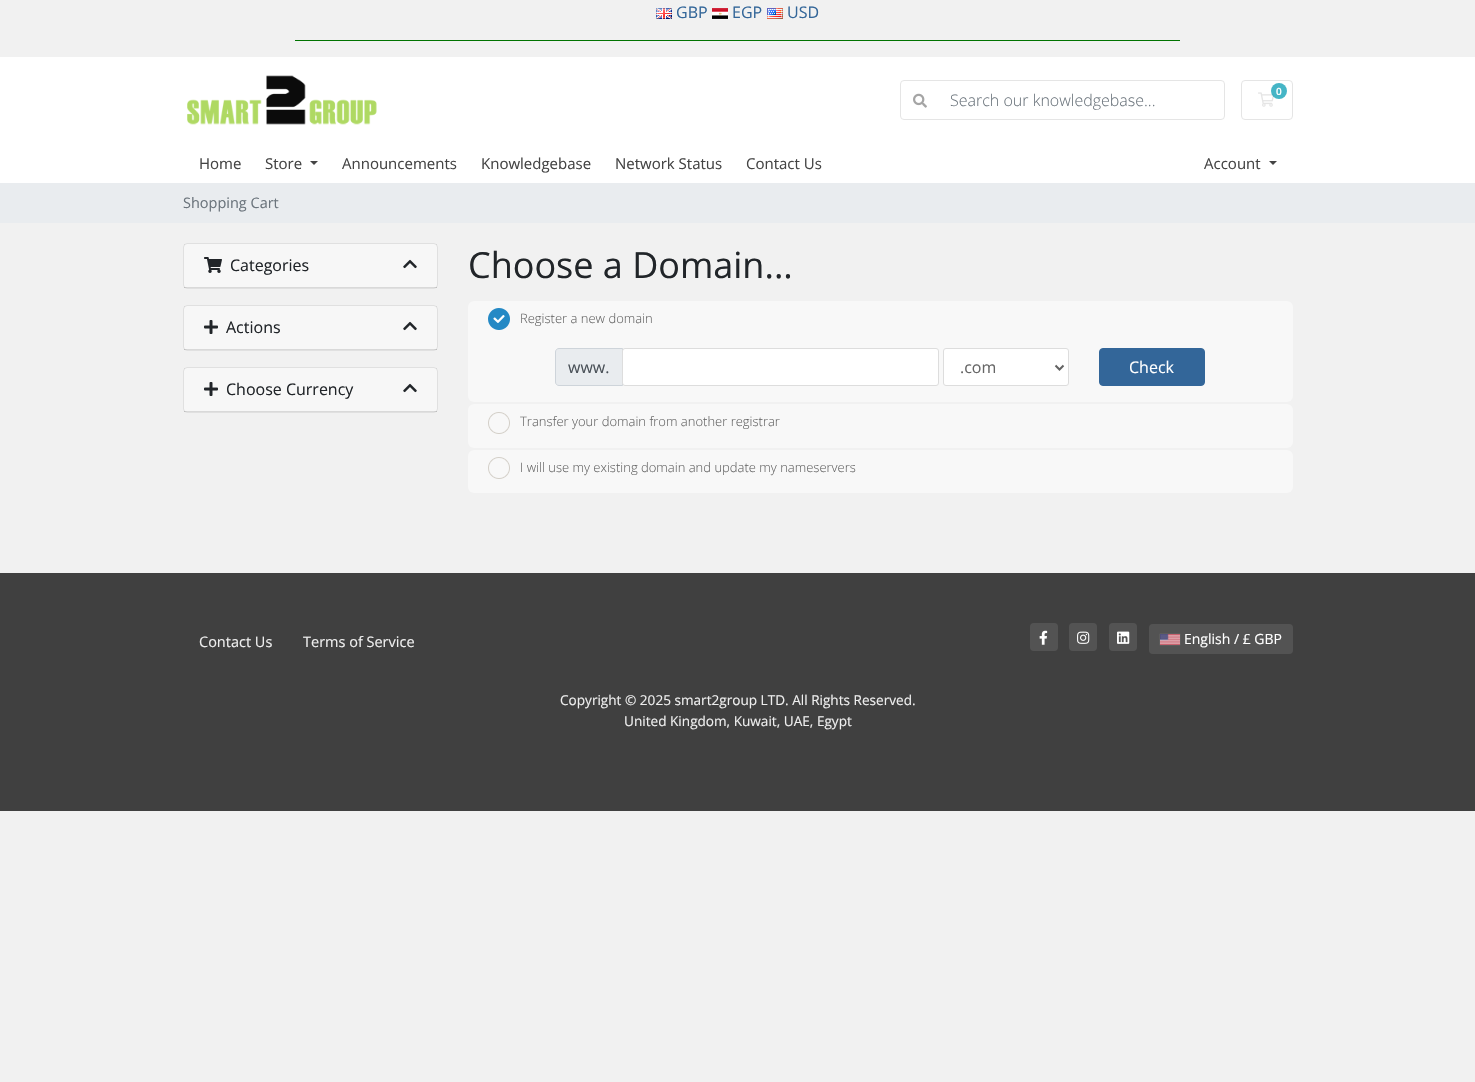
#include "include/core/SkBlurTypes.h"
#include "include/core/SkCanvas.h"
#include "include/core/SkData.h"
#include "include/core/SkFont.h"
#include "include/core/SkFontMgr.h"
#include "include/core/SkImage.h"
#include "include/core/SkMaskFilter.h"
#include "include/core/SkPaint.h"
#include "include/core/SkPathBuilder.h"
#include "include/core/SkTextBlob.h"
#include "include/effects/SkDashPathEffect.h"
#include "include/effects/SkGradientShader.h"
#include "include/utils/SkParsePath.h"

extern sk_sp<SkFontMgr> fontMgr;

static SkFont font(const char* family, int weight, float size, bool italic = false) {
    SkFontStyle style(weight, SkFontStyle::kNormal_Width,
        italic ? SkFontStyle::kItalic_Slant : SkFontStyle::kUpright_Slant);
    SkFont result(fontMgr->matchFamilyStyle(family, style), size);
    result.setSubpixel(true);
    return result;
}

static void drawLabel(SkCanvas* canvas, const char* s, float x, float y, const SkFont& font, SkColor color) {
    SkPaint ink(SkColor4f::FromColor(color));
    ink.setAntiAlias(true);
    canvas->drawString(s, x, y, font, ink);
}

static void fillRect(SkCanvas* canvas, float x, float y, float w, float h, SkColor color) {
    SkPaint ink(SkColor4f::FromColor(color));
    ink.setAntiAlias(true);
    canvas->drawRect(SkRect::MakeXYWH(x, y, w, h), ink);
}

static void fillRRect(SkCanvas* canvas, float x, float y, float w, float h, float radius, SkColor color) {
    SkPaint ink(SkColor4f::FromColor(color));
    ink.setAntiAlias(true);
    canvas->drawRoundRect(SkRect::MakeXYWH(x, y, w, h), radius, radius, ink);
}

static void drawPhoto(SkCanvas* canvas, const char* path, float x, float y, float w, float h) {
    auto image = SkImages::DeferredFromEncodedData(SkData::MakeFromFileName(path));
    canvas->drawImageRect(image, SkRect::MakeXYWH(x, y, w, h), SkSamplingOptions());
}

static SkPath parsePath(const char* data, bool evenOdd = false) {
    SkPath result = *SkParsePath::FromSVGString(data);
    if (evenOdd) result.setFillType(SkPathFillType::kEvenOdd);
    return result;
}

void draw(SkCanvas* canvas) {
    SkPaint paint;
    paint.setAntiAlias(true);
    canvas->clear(0xFFF1F1F1);
    drawPhoto(canvas, "assets/img1.png", 656, 8, 16, 11);
    SkFont font1 = font("Open Sans", 400, 16);
    drawLabel(canvas, "GBP", 676, 18, font1, 0xFF336699);
    drawPhoto(canvas, "assets/img2.png", 712, 8, 16, 11);
    drawLabel(canvas, "EGP", 732, 18, font1, 0xFF336699);
    drawPhoto(canvas, "assets/img3.png", 767, 8, 16, 11);
    drawLabel(canvas, "USD", 787, 18, font1, 0xFF336699);
    fillRect(canvas, 295, 40, 885, 1, 0xFF007300);
    fillRect(canvas, 0, 57, 1475, 126, 0xFFFFFFFF);
    drawPhoto(canvas, "assets/img4.png", 187, 75, 190, 50);
    paint.setStroke(true);
    paint.setStrokeWidth(1);
    paint.setColor(0xFFE5E5E5);
    canvas->drawRoundRect(SkRect::MakeXYWH(1241.5f, 80.5f, 51, 39), 3.5f, 3.5f, paint);
    drawPhoto(canvas, "assets/img5.png", 1258, 92, 16, 15);
    paint.setStroke(false);
    paint.setColor(0xCC17A2B8);
    canvas->drawCircle(1279, 91, 8, paint);
    SkFont font2 = font("Open Sans", 600, 10);
    drawLabel(canvas, "0", 1276, 95, font2, 0xFFFFFFFF);
    paint.setStroke(true);
    paint.setColor(0xFFE5E5E5);
    canvas->drawRoundRect(SkRect::MakeXYWH(900.5f, 80.5f, 324, 39), 3.5f, 3.5f, paint);
    drawPhoto(canvas, "assets/img6.png", 913, 93, 14, 15);
    SkFont font3 = font("Open Sans", 300, 16);
    drawLabel(canvas, "Search our knowledgebase...", 950, 106, font3, 0xFF6C757D);
    SkFont font4 = font("Open Sans", 400, 15);
    drawLabel(canvas, "Home", 199, 169, font4, 0xFF444444);
    drawLabel(canvas, "Store", 265, 169, font4, 0xFF444444);
    paint.setStroke(false);
    paint.setColor(0xFF444444);
    canvas->drawPath(parsePath("M310 161H318L314 165Z"), paint);
    drawLabel(canvas, "Announcements", 342, 169, font4, 0xFF444444);
    drawLabel(canvas, "Knowledgebase", 481, 169, font4, 0xFF444444);
    drawLabel(canvas, "Network Status", 615, 169, font4, 0xFF444444);
    drawLabel(canvas, "Contact Us", 746, 169, font4, 0xFF444444);
    drawLabel(canvas, "Account", 1204, 169, font4, 0xFF444444);
    canvas->drawPath(parsePath("M1269 161H1277L1273 165Z"), paint);
    fillRect(canvas, 0, 183, 1475, 40, 0xFFE9ECEF);
    SkFont font5 = font("Open Sans", 400, 14.5f);
    drawLabel(canvas, "Shopping Cart", 183, 208, font5, 0xFF6C757D);
    fillRRect(canvas, 183, 243, 255, 46, 4, 0xFFFFFFFF);
    paint.setStroke(true);
    paint.setColor(0x1F000000);
    canvas->drawRoundRect(SkRect::MakeXYWH(183.5f, 243.5f, 254, 45), 3.5f, 3.5f, paint);
    fillRect(canvas, 184, 244, 253, 44, 0x08000000);
    fillRect(canvas, 184, 287, 253, 1, 0x1F000000);
    drawPhoto(canvas, "assets/img7.png", 204, 257, 18, 16);
    drawLabel(canvas, "Categories", 230, 271, font1, 0xFF212529);
    drawPhoto(canvas, "assets/img8.png", 403, 259, 14, 10);
    fillRRect(canvas, 183, 305, 255, 46, 4, 0xFFFFFFFF);
    canvas->drawRoundRect(SkRect::MakeXYWH(183.5f, 305.5f, 254, 45), 3.5f, 3.5f, paint);
    fillRect(canvas, 184, 306, 253, 44, 0x08000000);
    fillRect(canvas, 184, 349, 253, 1, 0x1F000000);
    drawPhoto(canvas, "assets/img9.png", 204, 320, 14, 14);
    drawLabel(canvas, "Actions", 226, 333, font1, 0xFF212529);
    drawPhoto(canvas, "assets/img8.png", 403, 321, 14, 10);
    fillRRect(canvas, 183, 367, 255, 46, 4, 0xFFFFFFFF);
    canvas->drawRoundRect(SkRect::MakeXYWH(183.5f, 367.5f, 254, 45), 3.5f, 3.5f, paint);
    fillRect(canvas, 184, 368, 253, 44, 0x08000000);
    fillRect(canvas, 184, 411, 253, 1, 0x1F000000);
    drawPhoto(canvas, "assets/img9.png", 204, 382, 14, 14);
    drawLabel(canvas, "Choose Currency", 226, 395, font1, 0xFF212529);
    drawPhoto(canvas, "assets/img8.png", 403, 383, 14, 10);
    SkFont font6 = font("Open Sans", 400, 36);
    drawLabel(canvas, "Choose a Domain...", 468, 278, font6, 0xFF212529);
    fillRRect(canvas, 468, 301, 825, 101, 6, 0xFFF8F8F8);
    drawPhoto(canvas, "assets/img10.png", 488, 308, 22, 22);
    SkFont font7 = font("Open Sans", 300, 13);
    drawLabel(canvas, "Register a new domain", 520, 323, font7, 0xFF666666);
    paint.setStroke(false);
    paint.setColor(0xFFE9ECEF);
    canvas->drawPath(parsePath("M559 348.5H622.5V385.5H559C557 385.5 555.5 384 555.5 382V352C555.5 350 557 348.5 559 348.5Z"), paint);
    paint.setStroke(true);
    paint.setColor(0xFFCED4DA);
    canvas->drawPath(parsePath("M559 348.5H622.5V385.5H559C557 385.5 555.5 384 555.5 382V352C555.5 350 557 348.5 559 348.5Z"), paint);
    drawLabel(canvas, "www.", 568, 373, font1, 0xFF495057);
    paint.setStroke(false);
    paint.setColor(0xFFFFFFFF);
    canvas->drawRoundRect(SkRect::MakeXYWH(622.5f, 348.5f, 316, 37), 2.5f, 2.5f, paint);
    paint.setStroke(true);
    paint.setColor(0xFFDDDDDD);
    canvas->drawRoundRect(SkRect::MakeXYWH(622.5f, 348.5f, 316, 37), 2.5f, 2.5f, paint);
    paint.setStroke(false);
    paint.setColor(0xFFFFFFFF);
    canvas->drawRoundRect(SkRect::MakeXYWH(943.5f, 348.5f, 125, 37), 2.5f, 2.5f, paint);
    paint.setStroke(true);
    paint.setColor(0xFFDDDDDD);
    canvas->drawRoundRect(SkRect::MakeXYWH(943.5f, 348.5f, 125, 37), 2.5f, 2.5f, paint);
    paint.setStrokeWidth(2);
    paint.setColor(0xFF626262);
    canvas->drawPath(parsePath("M1055.5 365.5L1059.5 369.5L1063.5 365.5"), paint);
    drawLabel(canvas, ".com", 960, 373, font1, 0xFF666666);
    paint.setStroke(false);
    paint.setColor(0xFF336699);
    canvas->drawRoundRect(SkRect::MakeXYWH(1099.5f, 348.5f, 105, 37), 3.5f, 3.5f, paint);
    paint.setStroke(true);
    paint.setStrokeWidth(1);
    canvas->drawRoundRect(SkRect::MakeXYWH(1099.5f, 348.5f, 105, 37), 3.5f, 3.5f, paint);
    drawLabel(canvas, "Check", 1129, 373, font1, 0xFFFFFFFF);
    fillRRect(canvas, 468, 404, 825, 44, 6, 0xFFF8F8F8);
    drawPhoto(canvas, "assets/img11.png", 488, 412, 22, 22);
    drawLabel(canvas, "Transfer your domain from another registrar", 520, 426, font7, 0xFF666666);
    fillRRect(canvas, 468, 450, 825, 43, 6, 0xFFF8F8F8);
    drawPhoto(canvas, "assets/img11.png", 488, 457, 22, 22);
    drawLabel(canvas, "I will use my existing domain and update my nameservers", 520, 472, font7, 0xFF666666);
    fillRect(canvas, 0, 573, 1475, 238, 0xFF404040);
    drawLabel(canvas, "Contact Us", 199, 647, font5, 0xFFEEEEEE);
    drawLabel(canvas, "Terms of Service", 303, 647, font5, 0xFFEEEEEE);
    fillRRect(canvas, 1030, 623, 28, 28, 4, 0xFF535353);
    drawPhoto(canvas, "assets/img12.png", 1039, 630, 9, 15);
    fillRRect(canvas, 1069, 623, 28, 28, 4, 0xFF535353);
    drawPhoto(canvas, "assets/img13.png", 1077, 631, 13, 13);
    fillRRect(canvas, 1109, 623, 28, 28, 4, 0xFF535353);
    drawPhoto(canvas, "assets/img14.png", 1117, 631, 13, 13);
    fillRRect(canvas, 1149, 624, 144, 30, 4, 0xFF535353);
    paint.setStroke(false);
    paint.setColor(0xFF888888);
    paint.setMaskFilter(SkMaskFilter::MakeBlur(kNormal_SkBlurStyle, 0.5f));
    canvas->drawRect(SkRect::MakeXYWH(1160, 634, 20, 11), paint);
    paint.setMaskFilter(nullptr);
    drawPhoto(canvas, "assets/img15.png", 1160, 634, 20, 11);
    SkFont font8 = font("Open Sans", 400, 14);
    drawLabel(canvas, "English / £ GBP", 1184, 644, font8, 0xFFFFFFFF);
    SkFont font9 = font("Open Sans", 400, 13.6f);
    drawLabel(canvas, "Copyright © 2025 smart2group LTD. All Rights Reserved.", 560, 705, font9, 0xFFEEEEEE);
    drawLabel(canvas, "United Kingdom, Kuwait, UAE, Egypt", 624, 726, font9, 0xFFEEEEEE);
}
